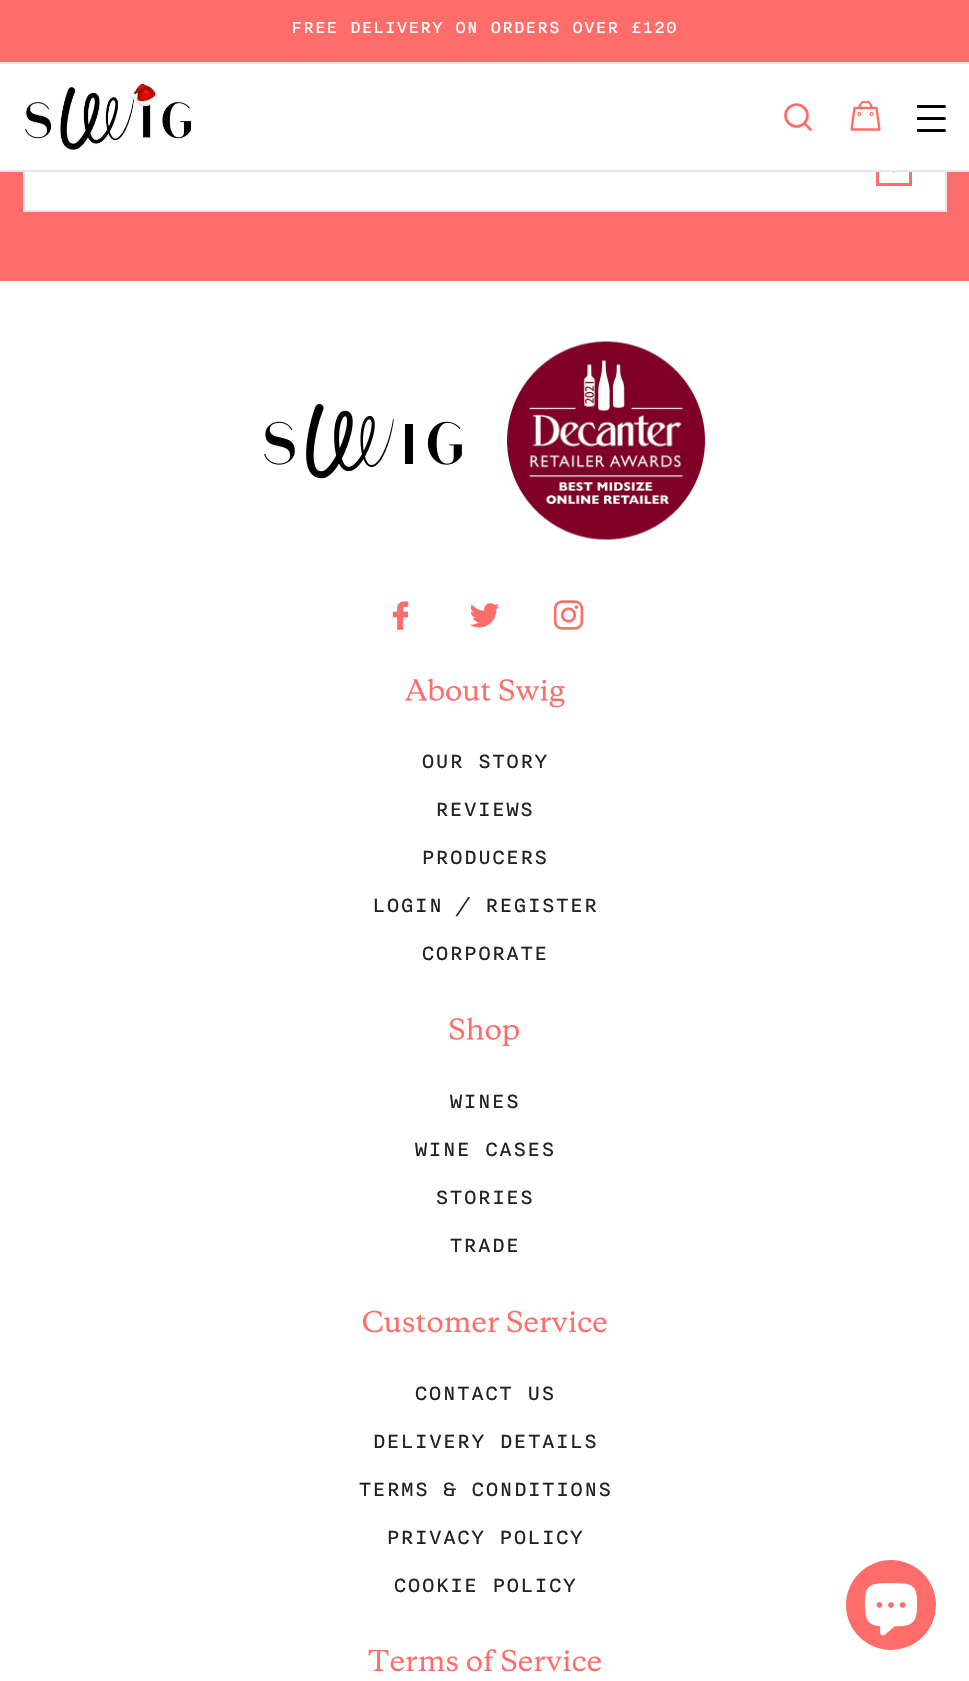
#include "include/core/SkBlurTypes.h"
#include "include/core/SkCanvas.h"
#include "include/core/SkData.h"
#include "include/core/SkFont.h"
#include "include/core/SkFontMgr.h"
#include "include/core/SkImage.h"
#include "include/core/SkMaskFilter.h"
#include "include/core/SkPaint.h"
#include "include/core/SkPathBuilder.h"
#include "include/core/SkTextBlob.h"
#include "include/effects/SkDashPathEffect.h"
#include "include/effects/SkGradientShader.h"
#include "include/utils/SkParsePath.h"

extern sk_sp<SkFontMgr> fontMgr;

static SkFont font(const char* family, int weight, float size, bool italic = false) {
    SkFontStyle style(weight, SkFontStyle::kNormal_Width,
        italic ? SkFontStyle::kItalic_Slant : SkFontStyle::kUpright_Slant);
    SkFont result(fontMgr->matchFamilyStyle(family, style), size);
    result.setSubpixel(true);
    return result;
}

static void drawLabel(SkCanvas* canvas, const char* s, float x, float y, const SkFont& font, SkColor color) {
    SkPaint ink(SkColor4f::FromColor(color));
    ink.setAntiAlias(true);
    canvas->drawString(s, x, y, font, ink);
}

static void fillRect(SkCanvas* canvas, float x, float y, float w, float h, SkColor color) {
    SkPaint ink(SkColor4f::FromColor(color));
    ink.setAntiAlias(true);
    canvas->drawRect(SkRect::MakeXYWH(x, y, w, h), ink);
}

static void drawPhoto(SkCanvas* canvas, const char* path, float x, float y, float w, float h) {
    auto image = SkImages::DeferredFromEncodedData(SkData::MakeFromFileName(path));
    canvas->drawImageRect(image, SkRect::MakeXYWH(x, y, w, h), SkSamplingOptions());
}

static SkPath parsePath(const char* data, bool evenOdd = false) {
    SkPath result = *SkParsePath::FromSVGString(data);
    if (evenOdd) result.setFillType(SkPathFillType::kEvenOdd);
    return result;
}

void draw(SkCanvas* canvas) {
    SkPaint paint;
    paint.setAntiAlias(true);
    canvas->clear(0xFFFFFFFF);
    fillRect(canvas, 0, 172, 969, 109, 0xFFFF6D6A);
    fillRect(canvas, 25, 172, 920, 38, 0xFFFFFFFF);
    paint.setStroke(true);
    paint.setStrokeWidth(2);
    paint.setColor(0xFFE5E5E5);
    canvas->drawRect(SkRect::MakeXYWH(24, 133, 922, 78), paint);
    paint.setStrokeWidth(3);
    paint.setColor(0xFFFF6D6A);
    canvas->drawRect(SkRect::MakeXYWH(877.5f, 159.5f, 33, 25), paint);
    paint.setStrokeCap(SkPaint::kRound_Cap);
    paint.setStrokeJoin(SkPaint::kRound_Join);
    canvas->drawPath(parsePath("M877 160L894 171M894 171L911 160"), paint);
    fillRect(canvas, 23, 132, 924, 38, 0xFFFFFFFF);
    fillRect(canvas, 0, 170, 969, 2, 0xFFE5E5E5);
    fillRect(canvas, 0, 0, 969, 62, 0xFFFF6D6A);
    fillRect(canvas, 0, 62, 969, 2, 0xFFE5E5E5);
    SkFont font1 = font("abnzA", 400, 19.5f);
    drawLabel(canvas, "FREE DELIVERY ON ORDERS OVER £120", 291, 33, font1, 0xFFFFFFFF);
    drawPhoto(canvas, "assets/img1.png", 25, 83, 167, 67);
    paint.setStrokeWidth(2.7f);
    paint.setStrokeCap(SkPaint::kButt_Cap);
    paint.setStrokeJoin(SkPaint::kMiter_Join);
    canvas->drawCircle(796.5f, 115.5f, 11, paint);
    paint.setStrokeCap(SkPaint::kRound_Cap);
    canvas->drawPath(parsePath("M810.5 129.5L805 124"), paint);
    paint.setStrokeWidth(2.3f);
    paint.setStrokeJoin(SkPaint::kRound_Join);
    canvas->drawPath(parsePath("M854.5 108H876.5L879.5 129.5H851.5Z"), paint);
    canvas->save();
    canvas->clipRect(SkRect::MakeXYWH(848, 101, 36, 30));
    canvas->drawPath(parsePath("M871.5 108C871.5 99.5 859.5 99.5 859.5 108"), paint);
    canvas->restore();
    paint.setStrokeWidth(1.2f);
    paint.setStrokeCap(SkPaint::kButt_Cap);
    paint.setStrokeJoin(SkPaint::kMiter_Join);
    canvas->drawCircle(859.3f, 114, 1.5f, paint);
    canvas->drawCircle(871.7f, 114, 1.5f, paint);
    canvas->save();
    canvas->clipRect(SkRect::MakeXYWH(917, 105, 30, 27));
    paint.setStrokeWidth(3);
    paint.setStrokeCap(SkPaint::kRound_Cap);
    paint.setColor(0xFF000000);
    canvas->drawPath(parsePath("M918 106.5H944.5M918 118.5H944.5M918 130.5H944.5"), paint);
    canvas->restore();
    drawPhoto(canvas, "assets/img2.png", 264, 404, 198, 75);
    drawPhoto(canvas, "assets/img3.png", 507, 341, 198, 199);
    drawPhoto(canvas, "assets/img4.png", 392, 601, 17, 29);
    drawPhoto(canvas, "assets/img5.png", 470, 603, 30, 25);
    drawPhoto(canvas, "assets/img6.png", 554, 600, 30, 30);
    drawPhoto(canvas, "assets/img7.png", 405, 678, 160, 30);
    SkFont font2 = font("abnzA", 400, 23.5f);
    drawLabel(canvas, "OUR STORY", 421, 768, font2, 0xFF222222);
    drawLabel(canvas, "REVIEWS", 435, 816, font2, 0xFF222222);
    drawLabel(canvas, "PRODUCERS", 421, 864, font2, 0xFF222222);
    drawLabel(canvas, "LOGIN / REGISTER", 372, 912, font2, 0xFF222222);
    drawLabel(canvas, "CORPORATE", 421, 960, font2, 0xFF222222);
    drawPhoto(canvas, "assets/img8.png", 449, 1017, 70, 29);
    drawLabel(canvas, "WINES", 449, 1108, font2, 0xFF222222);
    drawLabel(canvas, "WINE CASES", 414, 1156, font2, 0xFF222222);
    drawLabel(canvas, "STORIES", 435, 1204, font2, 0xFF222222);
    drawLabel(canvas, "TRADE", 449, 1252, font2, 0xFF222222);
    drawPhoto(canvas, "assets/img9.png", 362, 1310, 245, 23);
    drawLabel(canvas, "CONTACT US", 414, 1400, font2, 0xFF222222);
    drawLabel(canvas, "DELIVERY DETAILS", 372, 1448, font2, 0xFF222222);
    drawLabel(canvas, "TERMS & CONDITIONS", 358, 1496, font2, 0xFF222222);
    drawLabel(canvas, "PRIVACY POLICY", 386, 1544, font2, 0xFF222222);
    drawLabel(canvas, "COOKIE POLICY", 393, 1592, font2, 0xFF222222);
    drawPhoto(canvas, "assets/img10.png", 368, 1649, 233, 23);
    paint.setStroke(false);
    paint.setColor(0xFFFF6D6A);
    canvas->drawCircle(891, 1605, 45, paint);
    drawPhoto(canvas, "assets/img11.png", 864, 1583, 54, 53);
}
